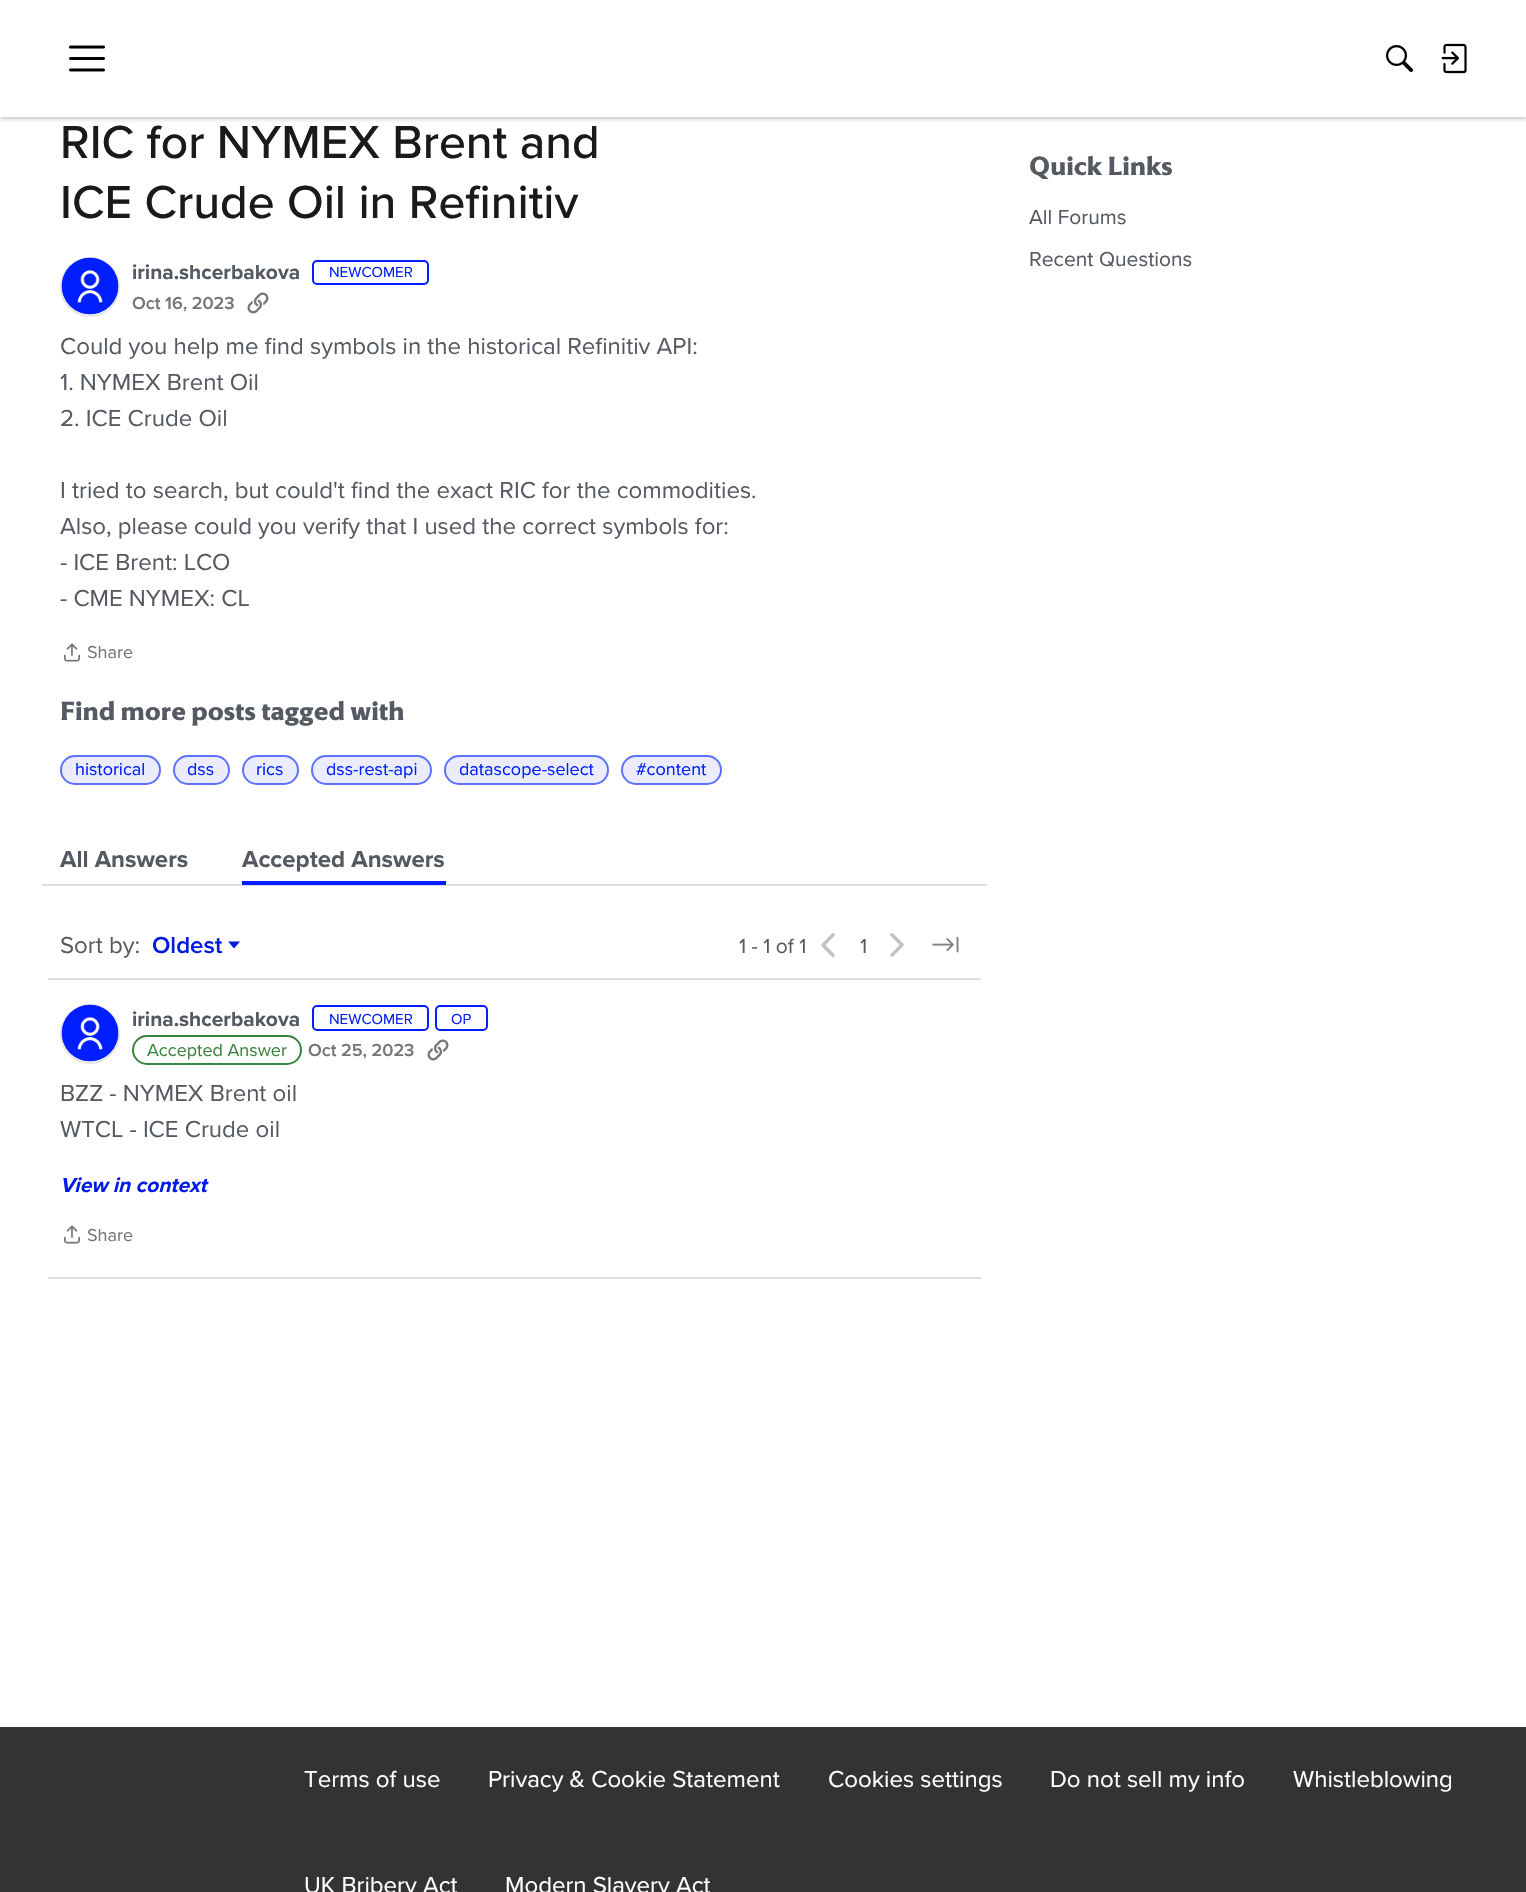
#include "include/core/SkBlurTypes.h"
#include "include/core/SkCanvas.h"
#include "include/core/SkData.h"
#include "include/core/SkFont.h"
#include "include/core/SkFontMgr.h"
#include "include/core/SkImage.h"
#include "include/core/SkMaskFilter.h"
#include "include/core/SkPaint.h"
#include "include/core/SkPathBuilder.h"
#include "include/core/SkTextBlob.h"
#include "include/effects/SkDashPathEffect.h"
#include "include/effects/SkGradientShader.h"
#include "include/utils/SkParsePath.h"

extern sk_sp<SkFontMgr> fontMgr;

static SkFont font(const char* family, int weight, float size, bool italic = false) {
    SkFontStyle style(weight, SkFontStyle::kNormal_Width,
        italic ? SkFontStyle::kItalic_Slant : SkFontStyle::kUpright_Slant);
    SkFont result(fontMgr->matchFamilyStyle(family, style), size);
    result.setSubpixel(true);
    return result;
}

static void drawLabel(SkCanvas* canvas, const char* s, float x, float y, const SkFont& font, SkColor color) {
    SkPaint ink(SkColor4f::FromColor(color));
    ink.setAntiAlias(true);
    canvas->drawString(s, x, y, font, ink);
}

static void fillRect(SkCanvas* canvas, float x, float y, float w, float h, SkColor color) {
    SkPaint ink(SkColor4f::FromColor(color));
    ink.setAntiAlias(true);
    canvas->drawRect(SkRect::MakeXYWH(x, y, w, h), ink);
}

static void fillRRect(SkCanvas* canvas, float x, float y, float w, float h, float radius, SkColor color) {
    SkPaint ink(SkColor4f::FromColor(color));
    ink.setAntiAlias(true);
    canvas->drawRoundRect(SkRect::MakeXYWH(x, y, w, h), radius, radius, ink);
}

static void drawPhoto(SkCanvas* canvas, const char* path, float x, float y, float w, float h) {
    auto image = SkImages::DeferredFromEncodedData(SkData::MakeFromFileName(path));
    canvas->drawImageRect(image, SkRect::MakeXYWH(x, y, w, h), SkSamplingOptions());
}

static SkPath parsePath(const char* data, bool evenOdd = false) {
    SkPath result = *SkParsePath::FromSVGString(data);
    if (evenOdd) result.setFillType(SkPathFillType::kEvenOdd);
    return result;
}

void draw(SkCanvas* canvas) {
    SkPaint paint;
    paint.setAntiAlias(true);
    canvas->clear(0xFFFFFFFF);
    paint.setColor(0x38000000);
    paint.setMaskFilter(SkMaskFilter::MakeBlur(kNormal_SkBlurStyle, 2));
    canvas->drawRect(SkRect::MakeXYWH(0, 2, 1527, 117), paint);
    paint.setMaskFilter(nullptr);
    fillRect(canvas, 0, 0, 1526, 117, 0xFFFFFFFF);
    drawPhoto(canvas, "assets/img1.png", 69, 45, 36, 27);
    drawPhoto(canvas, "assets/img2.png", 1386, 45, 27, 27);
    drawPhoto(canvas, "assets/img3.png", 1441, 43, 26, 31);
    SkFont font1 = font("Proxima Nova", 500, 48);
    drawLabel(canvas, "RIC for NYMEX Brent and", 60, 158, font1, 0xFF1A1A1A);
    drawLabel(canvas, "ICE Crude Oil in Refinitiv", 60, 218, font1, 0xFF1A1A1A);
    paint.setStroke(true);
    paint.setStrokeWidth(2);
    paint.setColor(0xFFE6E6E8);
    canvas->drawCircle(90, 287, 29, paint);
    drawPhoto(canvas, "assets/img4.png", 61, 257, 58, 58);
    SkFont font2 = font("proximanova", 700, 21);
    drawLabel(canvas, "irina.shcerbakova", 132, 279, font2, 0xFF555A62);
    paint.setColor(0xFF001EFF);
    canvas->drawRoundRect(SkRect::MakeXYWH(313, 261, 115, 23), 4, 4, paint);
    SkFont font3 = font("proximanova", 400, 15);
    drawLabel(canvas, "NEWCOMER", 329, 277, font3, 0xFF001EFF);
    SkFont font4 = font("Proxima Nova", 600, 18);
    drawLabel(canvas, "Oct 16, 2023", 132, 309, font4, 0xFF767676);
    drawPhoto(canvas, "assets/img5.png", 247, 292, 22, 22);
    SkFont font5 = font("proximanova", 400, 24);
    drawLabel(canvas, "Could you help me find symbols in the historical Refinitiv API:", 60, 354, font5, 0xFF555A62);
    drawLabel(canvas, "1. NYMEX Brent Oil", 60, 390, font5, 0xFF555A62);
    drawLabel(canvas, "2. ICE Crude Oil", 60, 426, font5, 0xFF555A62);
    drawLabel(canvas, "I tried to search, but could't find the exact RIC for the commodities.", 60, 498, font5, 0xFF555A62);
    drawLabel(canvas, "Also, please could you verify that I used the correct symbols for:", 60, 534, font5, 0xFF555A62);
    drawLabel(canvas, "- ICE Brent: LCO", 60, 570, font5, 0xFF555A62);
    drawLabel(canvas, "- CME NYMEX: CL", 60, 606, font5, 0xFF555A62);
    drawPhoto(canvas, "assets/img6.png", 64, 643, 16, 19);
    SkFont font6 = font("proximanova", 400, 18);
    drawLabel(canvas, "Share", 87, 658, font6, 0xFF767676);
    SkFont font7 = font("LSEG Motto", 700, 27);
    drawLabel(canvas, "Find more posts tagged with", 60, 720, font7, 0xFF555A62);
    fillRRect(canvas, 60, 755, 101, 30, 15, 0xFFEBEDFF);
    paint.setColor(0x99001EFF);
    canvas->drawRoundRect(SkRect::MakeXYWH(61, 756, 99, 28), 14, 14, paint);
    drawLabel(canvas, "historical", 75, 775, font6, 0xFF001EFF);
    fillRRect(canvas, 173, 755, 57, 30, 15, 0xFFEBEDFF);
    canvas->drawRoundRect(SkRect::MakeXYWH(174, 756, 55, 28), 14, 14, paint);
    drawLabel(canvas, "dss", 187, 775, font6, 0xFF001EFF);
    fillRRect(canvas, 242, 755, 57, 30, 15, 0xFFEBEDFF);
    canvas->drawRoundRect(SkRect::MakeXYWH(243, 756, 55, 28), 14, 14, paint);
    drawLabel(canvas, "rics", 256, 775, font6, 0xFF001EFF);
    fillRRect(canvas, 311, 755, 121, 30, 15, 0xFFEBEDFF);
    canvas->drawRoundRect(SkRect::MakeXYWH(312, 756, 119, 28), 14, 14, paint);
    drawLabel(canvas, "dss-rest-api", 326, 775, font6, 0xFF001EFF);
    fillRRect(canvas, 444, 755, 165, 30, 15, 0xFFEBEDFF);
    canvas->drawRoundRect(SkRect::MakeXYWH(445, 756, 163, 28), 14, 14, paint);
    drawLabel(canvas, "datascope-select", 459, 775, font6, 0xFF001EFF);
    fillRRect(canvas, 621, 755, 101, 30, 15, 0xFFEBEDFF);
    canvas->drawRoundRect(SkRect::MakeXYWH(622, 756, 99, 28), 14, 14, paint);
    drawLabel(canvas, "#content", 636, 775, font6, 0xFF001EFF);
    fillRect(canvas, 42, 884, 945, 2, 0xFFDDDEE0);
    SkFont font8 = font("proximanova", 700, 24);
    drawLabel(canvas, "All Answers", 60, 867, font8, 0xFF555A62);
    drawLabel(canvas, "Accepted Answers", 242, 867, font8, 0xFF555A62);
    fillRect(canvas, 242, 881, 204, 4, 0xFF001EFF);
    drawLabel(canvas, "Sort by:", 60, 953, font5, 0xFF555A62);
    SkFont font9 = font("Proxima Nova", 600, 24);
    drawLabel(canvas, "Oldest", 152, 953, font9, 0xFF001BE6);
    paint.setStroke(false);
    paint.setColor(0xFF001BE6);
    canvas->drawPath(parsePath("M228 941.5H240L234 948.5Z"), paint);
    SkFont font10 = font("proximanova", 400, 21);
    drawLabel(canvas, "1 - 1 of 1", 739, 953, font10, 0xFF555A62);
    drawPhoto(canvas, "assets/img7.png", 821, 933, 14, 25);
    drawLabel(canvas, "1", 860, 953, font10, 0xFF555A62);
    drawPhoto(canvas, "assets/img8.png", 890, 933, 14, 24);
    drawPhoto(canvas, "assets/img9.png", 932, 936, 27, 17);
    fillRect(canvas, 48, 978, 933, 2, 0xFFDDDEE0);
    paint.setStroke(true);
    paint.setColor(0xFFE6E6E8);
    canvas->drawCircle(90, 1034, 29, paint);
    drawPhoto(canvas, "assets/img4.png", 61, 1004, 58, 58);
    drawLabel(canvas, "irina.shcerbakova", 132, 1026, font2, 0xFF555A62);
    paint.setColor(0xFF001EFF);
    canvas->drawRoundRect(SkRect::MakeXYWH(313, 1006, 115, 24), 4, 4, paint);
    drawLabel(canvas, "NEWCOMER", 329, 1024, font3, 0xFF001EFF);
    canvas->drawRoundRect(SkRect::MakeXYWH(436, 1006, 51, 24), 4, 4, paint);
    drawLabel(canvas, "OP", 451, 1024, font3, 0xFF001EFF);
    paint.setColor(0xFF38853D);
    canvas->drawRoundRect(SkRect::MakeXYWH(133, 1036, 168, 28), 14, 14, paint);
    drawLabel(canvas, "Accepted Answer", 147, 1056, font6, 0xFF38853D);
    drawLabel(canvas, "Oct 25, 2023", 308, 1056, font4, 0xFF767676);
    drawPhoto(canvas, "assets/img5.png", 427, 1039, 22, 22);
    drawLabel(canvas, "BZZ - NYMEX Brent oil", 60, 1101, font5, 0xFF555A62);
    drawLabel(canvas, "WTCL - ICE Crude oil", 60, 1137, font5, 0xFF555A62);
    SkFont font11 = font("proximanova", 700, 21, true);
    drawLabel(canvas, "View in context", 60, 1192, font11, 0xFF001BE6);
    drawPhoto(canvas, "assets/img6.png", 64, 1225, 16, 19);
    drawLabel(canvas, "Share", 87, 1241, font6, 0xFF767676);
    fillRect(canvas, 48, 1277, 933, 2, 0xFFDDDEE0);
    drawLabel(canvas, "Quick Links", 1029, 175, font7, 0xFF555A62);
    drawLabel(canvas, "All Forums", 1029, 224, font10, 0xFF555A62);
    drawLabel(canvas, "Recent Questions", 1029, 266, font10, 0xFF555A62);
    fillRect(canvas, 0, 1727, 1526, 165, 0xFF333333);
    drawLabel(canvas, "Terms of use", 304, 1787, font5, 0xFFFFFFFF);
    drawLabel(canvas, "Privacy & Cookie Statement", 488, 1787, font5, 0xFFFFFFFF);
    drawLabel(canvas, "Cookies settings", 828, 1787, font5, 0xFFFFFFFF);
    drawLabel(canvas, "Do not sell my info", 1050, 1787, font5, 0xFFFFFFFF);
    drawLabel(canvas, "Whistleblowing", 1293, 1787, font5, 0xFFFFFFFF);
    drawLabel(canvas, "UK Bribery Act", 304, 1893, font5, 0xFFFFFFFF);
    drawLabel(canvas, "Modern Slavery Act", 505, 1893, font5, 0xFFFFFFFF);
}
